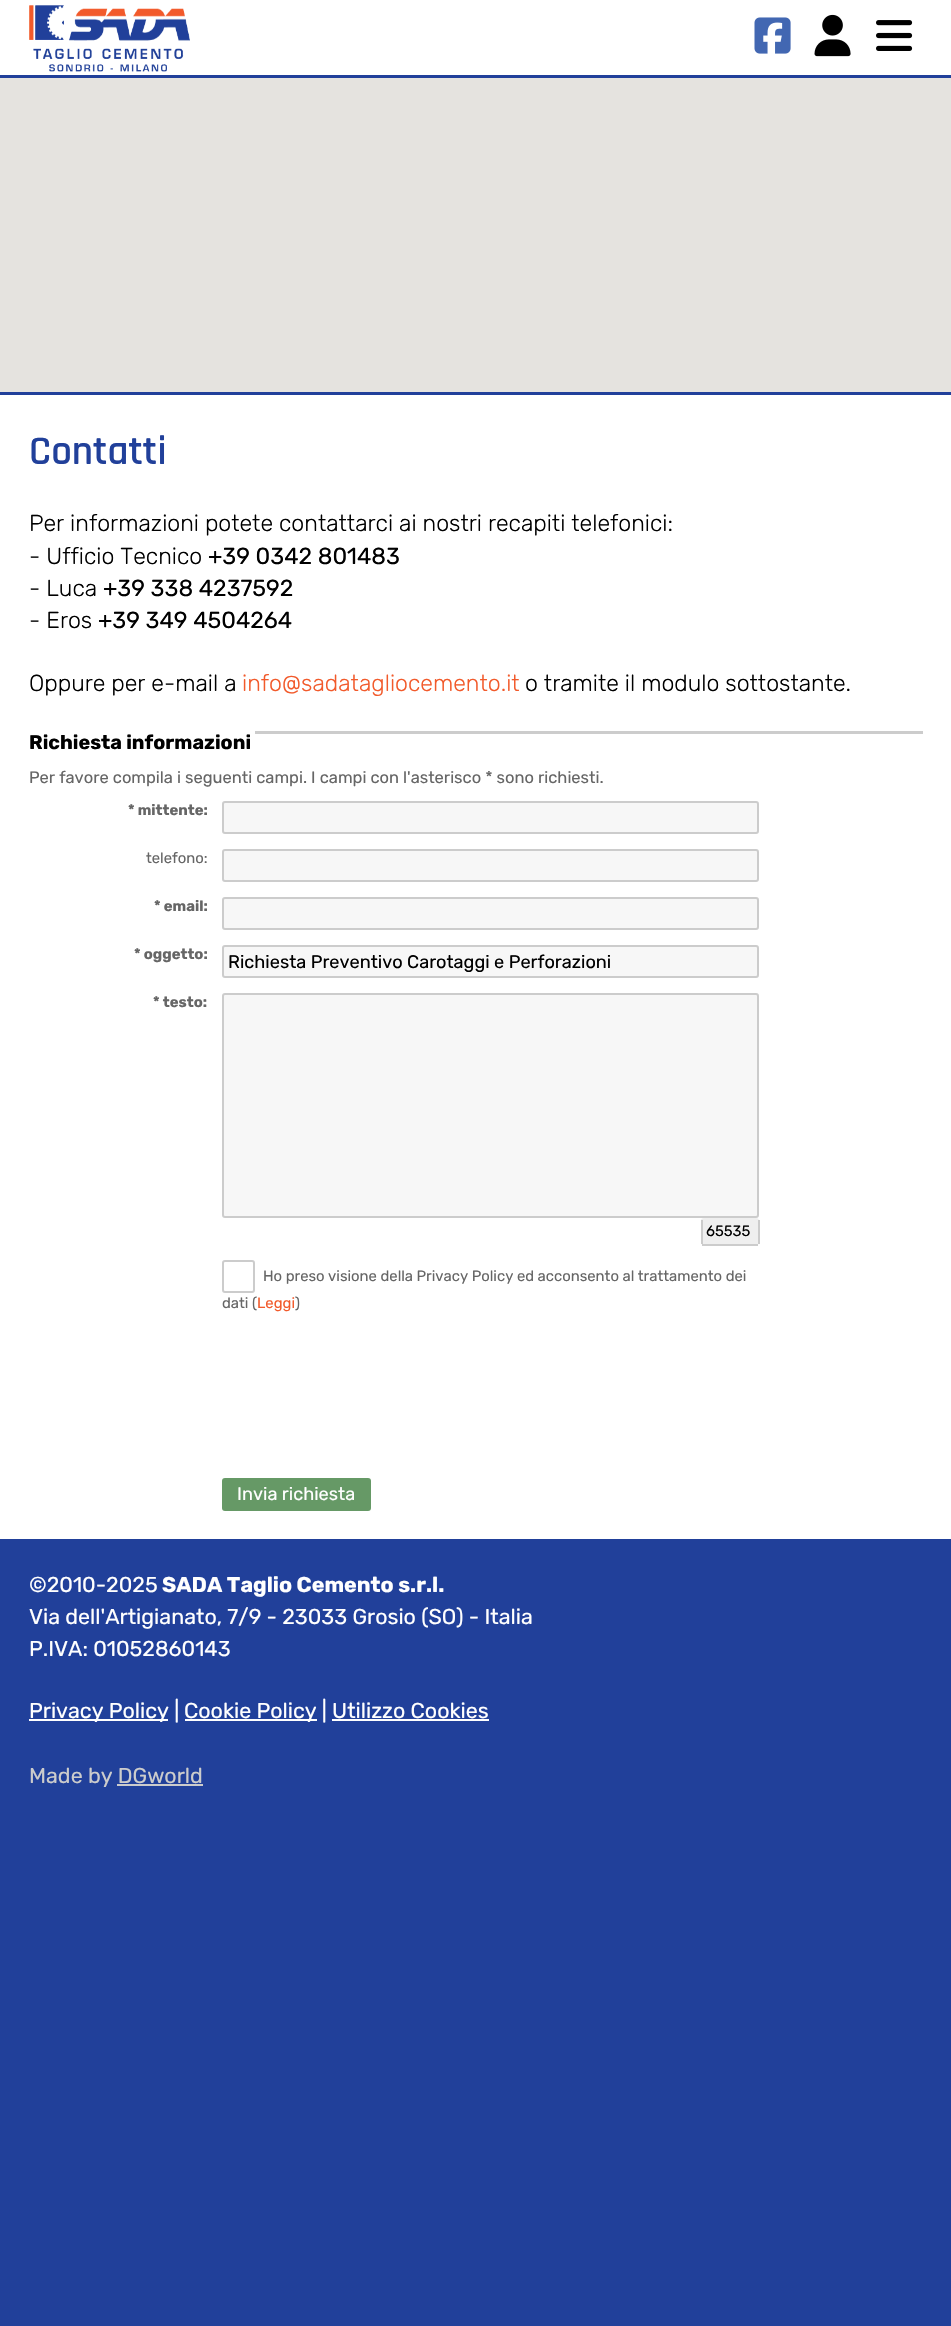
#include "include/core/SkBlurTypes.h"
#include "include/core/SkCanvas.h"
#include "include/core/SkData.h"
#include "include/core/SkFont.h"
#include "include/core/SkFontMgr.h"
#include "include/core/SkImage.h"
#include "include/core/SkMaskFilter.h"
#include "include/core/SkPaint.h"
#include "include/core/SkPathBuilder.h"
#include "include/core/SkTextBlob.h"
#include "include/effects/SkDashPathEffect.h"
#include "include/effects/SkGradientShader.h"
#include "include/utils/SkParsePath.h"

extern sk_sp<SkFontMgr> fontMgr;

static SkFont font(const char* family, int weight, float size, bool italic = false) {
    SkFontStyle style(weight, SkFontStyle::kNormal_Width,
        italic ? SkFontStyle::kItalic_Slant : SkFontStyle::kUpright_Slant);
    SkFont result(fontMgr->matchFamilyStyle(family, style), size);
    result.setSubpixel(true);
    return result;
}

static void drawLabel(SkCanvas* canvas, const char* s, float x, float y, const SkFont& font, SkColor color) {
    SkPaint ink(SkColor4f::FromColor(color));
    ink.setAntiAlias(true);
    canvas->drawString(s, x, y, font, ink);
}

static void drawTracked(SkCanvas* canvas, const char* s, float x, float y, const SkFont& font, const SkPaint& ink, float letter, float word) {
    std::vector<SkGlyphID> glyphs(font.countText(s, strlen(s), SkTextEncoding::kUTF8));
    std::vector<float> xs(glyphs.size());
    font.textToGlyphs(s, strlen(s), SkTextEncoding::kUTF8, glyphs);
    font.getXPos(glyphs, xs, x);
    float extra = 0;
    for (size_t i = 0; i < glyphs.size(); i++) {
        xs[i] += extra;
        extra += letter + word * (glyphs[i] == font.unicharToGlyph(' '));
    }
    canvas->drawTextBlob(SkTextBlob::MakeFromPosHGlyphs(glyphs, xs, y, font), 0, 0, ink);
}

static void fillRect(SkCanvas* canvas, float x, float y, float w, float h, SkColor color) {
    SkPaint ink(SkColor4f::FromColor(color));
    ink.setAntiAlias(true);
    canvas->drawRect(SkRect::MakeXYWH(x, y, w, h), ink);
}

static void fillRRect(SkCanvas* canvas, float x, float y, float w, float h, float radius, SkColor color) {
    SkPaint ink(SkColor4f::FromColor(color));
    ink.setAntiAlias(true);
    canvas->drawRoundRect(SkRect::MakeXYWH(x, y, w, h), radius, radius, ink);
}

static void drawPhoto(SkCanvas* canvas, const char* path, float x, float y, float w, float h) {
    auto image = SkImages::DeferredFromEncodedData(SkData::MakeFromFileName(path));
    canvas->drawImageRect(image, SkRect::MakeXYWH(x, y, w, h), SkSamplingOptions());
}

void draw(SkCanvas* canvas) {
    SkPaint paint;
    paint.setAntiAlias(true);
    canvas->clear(0xFF21409A);
    fillRect(canvas, 0, 0, 951, 75, 0xFFFFFFFF);
    drawPhoto(canvas, "assets/img1.png", 29, 5, 161, 67);
    drawPhoto(canvas, "assets/img2.png", 754, 17, 37, 37);
    drawPhoto(canvas, "assets/img3.png", 814, 14, 37, 43);
    drawPhoto(canvas, "assets/img4.png", 876, 20, 37, 31);
    fillRect(canvas, 0, 395, 951, 1144, 0xFFFFFFFF);
    fillRect(canvas, 0, 78, 951, 314, 0xFFE5E3DF);
    SkFont font1 = font("Rajdhani", 600, 41);
    drawLabel(canvas, "Contatti", 29, 464, font1, 0xFF21409A);
    SkFont font2 = font("Rubik", 300, 23.1f);
    drawLabel(canvas, "Per informazioni potete contattarci ai nostri recapiti telefonici:", 29, 531, font2, 0xFF000000);
    drawLabel(canvas, "- Ufficio Tecnico", 29, 564, font2, 0xFF000000);
    SkFont font3 = font("Rubik", 400, 23.1f);
    drawLabel(canvas, "+39 0342 801483", 208, 564, font3, 0xFF000000);
    drawLabel(canvas, "- Luca", 29, 596, font2, 0xFF000000);
    drawLabel(canvas, "+39 338 4237592", 103, 596, font3, 0xFF000000);
    drawLabel(canvas, "- Eros", 29, 628, font2, 0xFF000000);
    drawLabel(canvas, "+39 349 4504264", 98, 628, font3, 0xFF000000);
    drawLabel(canvas, "Oppure per e-mail a", 29, 691, font2, 0xFF000000);
    drawLabel(canvas, "info@sadatagliocemento.it", 242, 691, font2, 0xFFF25A2B);
    drawLabel(canvas, "o tramite il modulo sottostante.", 525, 691, font2, 0xFF000000);
    fillRect(canvas, 255, 731, 668, 3, 0xFFCCCCCC);
    SkFont font4 = font("Rubik", 700, 19.75f);
    drawLabel(canvas, "Richiesta informazioni", 29, 749, font4, 0xFF000000);
    SkFont font5 = font("Rubik", 400, 16.5f);
    drawLabel(canvas, "Per favore compila i seguenti campi. I campi con l'asterisco * sono richiesti.", 29, 783, font5, 0xFF666666);
    SkFont font6 = font("Rubik", 700, 14.85f);
    drawLabel(canvas, "* mittente:", 128, 815, font6, 0xFF666666);
    paint.setColor(0xFFF7F7F7);
    canvas->drawRoundRect(SkRect::MakeXYWH(223, 802, 535, 31), 2, 2, paint);
    paint.setStroke(true);
    paint.setStrokeWidth(2);
    paint.setColor(0xFFCCCCCC);
    canvas->drawRoundRect(SkRect::MakeXYWH(223, 802, 535, 31), 2, 2, paint);
    SkFont font7 = font("Rubik", 400, 14.85f);
    drawLabel(canvas, "telefono:", 146, 863, font7, 0xFF666666);
    paint.setStroke(false);
    paint.setColor(0xFFF7F7F7);
    canvas->drawRoundRect(SkRect::MakeXYWH(223, 850, 535, 31), 2, 2, paint);
    paint.setStroke(true);
    paint.setColor(0xFFCCCCCC);
    canvas->drawRoundRect(SkRect::MakeXYWH(223, 850, 535, 31), 2, 2, paint);
    drawLabel(canvas, "* email:", 154, 911, font6, 0xFF666666);
    paint.setStroke(false);
    paint.setColor(0xFFF7F7F7);
    canvas->drawRoundRect(SkRect::MakeXYWH(223, 898, 535, 31), 2, 2, paint);
    paint.setStroke(true);
    paint.setColor(0xFFCCCCCC);
    canvas->drawRoundRect(SkRect::MakeXYWH(223, 898, 535, 31), 2, 2, paint);
    drawLabel(canvas, "* oggetto:", 134, 959, font6, 0xFF666666);
    paint.setStroke(false);
    paint.setColor(0xFFF7F7F7);
    canvas->drawRoundRect(SkRect::MakeXYWH(223, 946, 535, 31), 2, 2, paint);
    paint.setStroke(true);
    paint.setColor(0xFFCCCCCC);
    canvas->drawRoundRect(SkRect::MakeXYWH(223, 946, 535, 31), 2, 2, paint);
    SkFont font8 = font("Rubik", 400, 18.15f);
    drawLabel(canvas, "Richiesta Preventivo Carotaggi e Perforazioni", 228, 968, font8, 0xFF000000);
    drawLabel(canvas, "* testo:", 153, 1007, font6, 0xFF666666);
    paint.setStroke(false);
    paint.setColor(0xFFF7F7F7);
    canvas->drawRoundRect(SkRect::MakeXYWH(223, 994, 535, 223), 2, 2, paint);
    paint.setStroke(true);
    paint.setColor(0xFFCCCCCC);
    canvas->drawRoundRect(SkRect::MakeXYWH(223, 994, 535, 223), 2, 2, paint);
    fillRRect(canvas, 701, 1218, 58, 27, 3, 0xFFEFEFEF);
    fillRect(canvas, 758, 1220, 2, 24, 0xFFCCCCCC);
    fillRect(canvas, 702, 1244, 56, 2, 0xFFCCCCCC);
    fillRect(canvas, 701, 1220, 2, 24, 0xFFCCCCCC);
    drawLabel(canvas, "65535", 706, 1236, font7, 0xFF000000);
    canvas->drawRoundRect(SkRect::MakeXYWH(223, 1261, 31, 31), 2, 2, paint);
    paint.setStroke(false);
    paint.setColor(0xFF666666);
    drawTracked(canvas, "Ho preso visione della Privacy Policy ed acconsento al trattamento dei", 263, 1281, font7, paint, 0, -0.1f);
    drawLabel(canvas, "dati (", 222, 1308, font7, 0xFF666666);
    drawLabel(canvas, "Leggi", 257, 1308, font7, 0xFFF25A2B);
    drawLabel(canvas, ")", 295, 1308, font7, 0xFF666666);
    fillRRect(canvas, 222, 1478, 149, 33, 3, 0xFF669966);
    drawLabel(canvas, "Invia richiesta", 237, 1500, font8, 0xFFFFFFFF);
    SkFont font9 = font("Rubik", 400, 21.45f);
    drawLabel(canvas, "©2010-2025", 29, 1592, font9, 0xFFFFFFFF);
    SkFont font10 = font("Rubik", 700, 21.45f);
    drawLabel(canvas, "SADA Taglio Cemento s.r.l.", 162, 1592, font10, 0xFFFFFFFF);
    drawLabel(canvas, "Via dell'Artigianato, 7/9 - 23033 Grosio (SO) - Italia", 29, 1624, font9, 0xFFFFFFFF);
    drawLabel(canvas, "P.IVA: 01052860143", 29, 1656, font9, 0xFFFFFFFF);
    fillRect(canvas, 29, 1719, 139, 2, 0xFFFFFFFF);
    drawLabel(canvas, "Privacy Policy |", 29, 1718, font9, 0xFFFFFFFF);
    fillRect(canvas, 185, 1719, 132, 2, 0xFFFFFFFF);
    drawLabel(canvas, "Cookie Policy | Utilizzo Cookies", 184, 1718, font9, 0xFFFFFFFF);
    fillRect(canvas, 332, 1719, 157, 2, 0xFFFFFFFF);
    drawLabel(canvas, "Made by DGworld", 29, 1783, font9, 0xFFCCCCCC);
    fillRect(canvas, 117, 1784, 86, 2, 0xFFCCCCCC);
}
